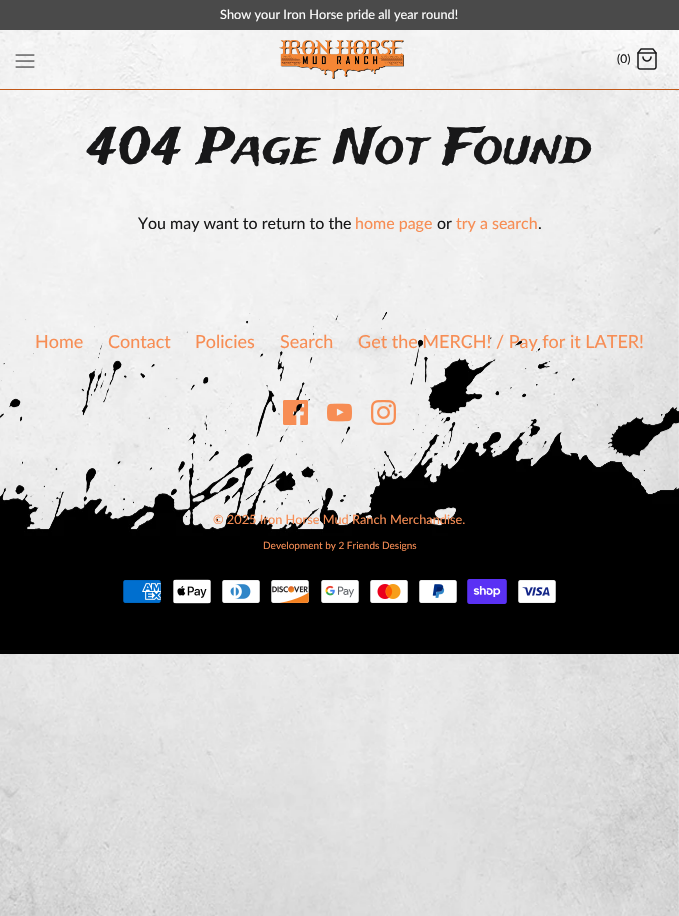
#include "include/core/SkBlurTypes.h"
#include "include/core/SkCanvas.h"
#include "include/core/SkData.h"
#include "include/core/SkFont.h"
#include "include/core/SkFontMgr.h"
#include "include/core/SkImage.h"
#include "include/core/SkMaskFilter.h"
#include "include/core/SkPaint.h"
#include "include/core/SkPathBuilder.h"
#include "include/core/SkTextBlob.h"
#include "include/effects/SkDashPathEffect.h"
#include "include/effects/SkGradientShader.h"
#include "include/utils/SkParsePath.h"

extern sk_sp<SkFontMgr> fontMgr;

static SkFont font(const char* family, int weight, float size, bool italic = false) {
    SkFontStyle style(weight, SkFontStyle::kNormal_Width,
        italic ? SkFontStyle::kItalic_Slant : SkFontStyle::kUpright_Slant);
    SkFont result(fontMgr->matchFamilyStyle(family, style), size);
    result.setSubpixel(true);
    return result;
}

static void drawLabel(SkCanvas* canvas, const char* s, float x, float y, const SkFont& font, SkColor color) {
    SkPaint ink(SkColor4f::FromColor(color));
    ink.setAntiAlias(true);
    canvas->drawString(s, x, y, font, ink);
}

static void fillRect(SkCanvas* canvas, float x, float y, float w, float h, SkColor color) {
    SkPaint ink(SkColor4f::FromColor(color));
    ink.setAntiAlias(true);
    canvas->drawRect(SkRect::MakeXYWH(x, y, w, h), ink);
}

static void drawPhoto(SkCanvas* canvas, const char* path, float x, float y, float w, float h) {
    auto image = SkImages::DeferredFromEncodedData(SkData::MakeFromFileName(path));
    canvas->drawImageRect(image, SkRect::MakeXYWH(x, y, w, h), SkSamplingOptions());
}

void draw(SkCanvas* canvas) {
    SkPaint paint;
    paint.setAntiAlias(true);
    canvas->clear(0xFFFFFFFF);
    drawPhoto(canvas, "assets/img1.png", 0, 30, 679, 886);
    fillRect(canvas, 0, 0, 679, 30, 0xFF4A4A4A);
    SkFont font1 = font("Lato", 400, 12.75f);
    drawLabel(canvas, "Show your Iron Horse pride all year round!", 220, 19, font1, 0xFFFFFFFF);
    fillRect(canvas, 0, 89, 679, 1, 0xFFC05717);
    drawPhoto(canvas, "assets/img2.png", 15, 54, 20, 14);
    drawPhoto(canvas, "assets/img3.png", 279, 40, 125, 39);
    SkFont font2 = font("Lato", 400, 12);
    drawLabel(canvas, "(0)", 617, 63, font2, 0xFF181819);
    drawPhoto(canvas, "assets/img4.png", 637, 48, 20, 22);
    SkFont font3 = font("Trade Winds", 400, 50);
    drawLabel(canvas, "404 Page Not Found", 87, 163, font3, 0xFF181819);
    SkFont font4 = font("Lato", 400, 16);
    drawLabel(canvas, "You may want to return to the", 138, 229, font4, 0xFF181819);
    drawLabel(canvas, "home page", 355, 229, font4, 0xFFF78D54);
    drawLabel(canvas, "or", 437, 229, font4, 0xFF181819);
    drawLabel(canvas, "try a search", 456, 229, font4, 0xFFF78D54);
    drawLabel(canvas, ".", 538, 229, font4, 0xFF181819);
    drawPhoto(canvas, "assets/img5.png", 0, 312, 679, 342);
    SkFont font5 = font("Lato", 400, 18);
    drawLabel(canvas, "Home", 35, 348, font5, 0xFFF78D54);
    drawLabel(canvas, "Contact", 108, 348, font5, 0xFFF78D54);
    drawLabel(canvas, "Policies", 195, 348, font5, 0xFFF78D54);
    drawLabel(canvas, "Search", 280, 348, font5, 0xFFF78D54);
    drawLabel(canvas, "Get the MERCH! / Pay for it LATER!", 358, 348, font5, 0xFFF78D54);
    drawPhoto(canvas, "assets/img6.png", 283, 400, 25, 25);
    drawPhoto(canvas, "assets/img7.png", 327, 403, 25, 19);
    drawPhoto(canvas, "assets/img8.png", 371, 400, 25, 25);
    drawLabel(canvas, "© 2025 Iron Horse Mud Ranch Merchandise.", 213, 524, font1, 0xFFF78D54);
    SkFont font6 = font("Lato", 400, 10);
    drawLabel(canvas, "Development by 2 Friends Designs", 263, 549, font6, 0xFFF78D54);
    drawPhoto(canvas, "assets/img9.png", 123, 580, 38, 23);
    drawPhoto(canvas, "assets/img10.png", 173, 579, 38, 25);
    drawPhoto(canvas, "assets/img11.png", 222, 580, 38, 23);
    drawPhoto(canvas, "assets/img12.png", 271, 580, 38, 23);
    drawPhoto(canvas, "assets/img13.png", 321, 580, 38, 23);
    drawPhoto(canvas, "assets/img14.png", 370, 580, 38, 23);
    drawPhoto(canvas, "assets/img15.png", 419, 580, 38, 23);
    drawPhoto(canvas, "assets/img16.png", 467, 579, 40, 25);
    drawPhoto(canvas, "assets/img17.png", 518, 580, 38, 23);
}
